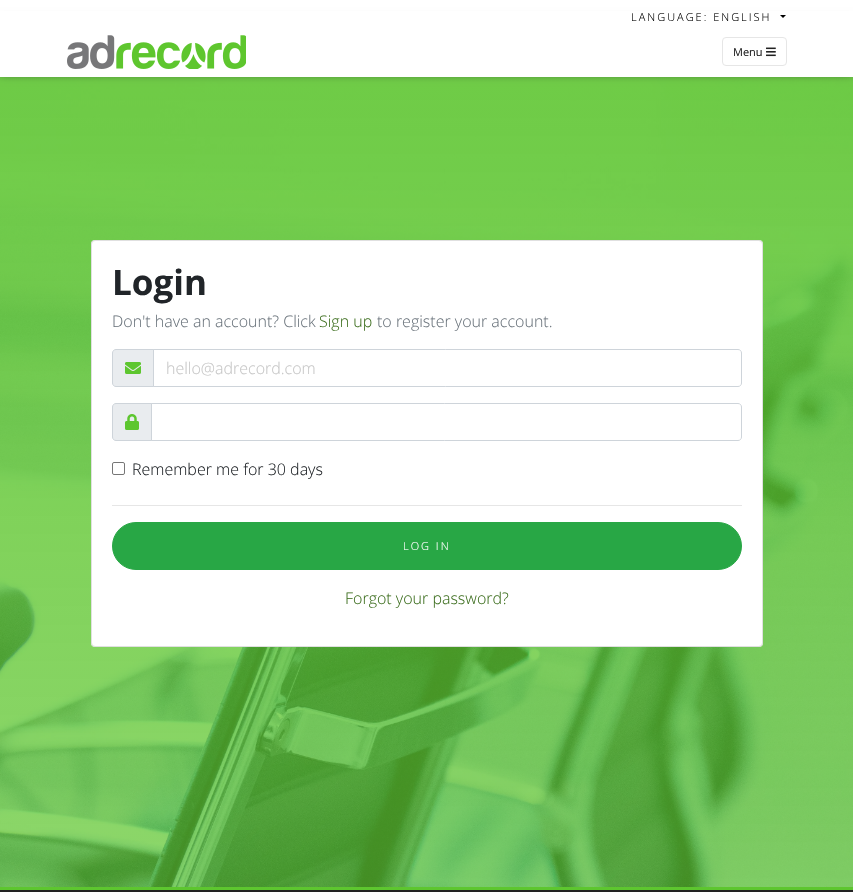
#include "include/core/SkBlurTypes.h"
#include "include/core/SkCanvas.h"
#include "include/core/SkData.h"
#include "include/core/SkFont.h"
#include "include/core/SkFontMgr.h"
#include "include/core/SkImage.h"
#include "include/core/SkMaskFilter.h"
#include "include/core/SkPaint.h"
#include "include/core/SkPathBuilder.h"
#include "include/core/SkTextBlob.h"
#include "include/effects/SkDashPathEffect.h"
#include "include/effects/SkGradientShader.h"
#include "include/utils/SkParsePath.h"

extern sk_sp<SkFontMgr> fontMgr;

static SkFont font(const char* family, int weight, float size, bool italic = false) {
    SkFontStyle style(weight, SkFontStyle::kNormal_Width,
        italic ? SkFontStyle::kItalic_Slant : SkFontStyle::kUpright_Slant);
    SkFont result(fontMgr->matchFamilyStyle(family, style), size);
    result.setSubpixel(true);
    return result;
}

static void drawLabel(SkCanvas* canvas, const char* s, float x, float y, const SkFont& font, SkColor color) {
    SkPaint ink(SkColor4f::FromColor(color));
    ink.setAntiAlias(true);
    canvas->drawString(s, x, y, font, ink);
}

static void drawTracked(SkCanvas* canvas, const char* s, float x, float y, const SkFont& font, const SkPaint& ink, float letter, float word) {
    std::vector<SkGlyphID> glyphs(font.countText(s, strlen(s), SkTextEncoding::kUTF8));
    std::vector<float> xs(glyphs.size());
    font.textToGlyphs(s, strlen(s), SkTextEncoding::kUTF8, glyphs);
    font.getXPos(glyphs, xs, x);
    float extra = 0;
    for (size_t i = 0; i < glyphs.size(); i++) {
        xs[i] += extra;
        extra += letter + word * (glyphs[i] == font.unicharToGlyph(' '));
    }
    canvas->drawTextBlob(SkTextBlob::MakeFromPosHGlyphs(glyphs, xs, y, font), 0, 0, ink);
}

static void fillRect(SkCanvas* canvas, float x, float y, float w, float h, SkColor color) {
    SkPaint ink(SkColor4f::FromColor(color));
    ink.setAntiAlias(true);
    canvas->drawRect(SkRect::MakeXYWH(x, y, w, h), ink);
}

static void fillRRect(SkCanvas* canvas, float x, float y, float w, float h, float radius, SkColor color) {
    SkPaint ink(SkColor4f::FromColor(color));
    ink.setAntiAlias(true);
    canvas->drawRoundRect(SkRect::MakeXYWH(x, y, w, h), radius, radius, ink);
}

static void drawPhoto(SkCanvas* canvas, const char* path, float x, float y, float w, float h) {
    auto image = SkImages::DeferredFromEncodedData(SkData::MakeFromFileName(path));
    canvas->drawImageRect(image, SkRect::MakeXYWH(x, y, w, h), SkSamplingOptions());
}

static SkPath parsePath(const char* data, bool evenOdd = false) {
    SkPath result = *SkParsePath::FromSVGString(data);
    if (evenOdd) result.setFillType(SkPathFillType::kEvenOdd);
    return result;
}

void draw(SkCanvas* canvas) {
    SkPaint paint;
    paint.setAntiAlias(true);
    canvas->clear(0xFFFFFFFF);
    drawPhoto(canvas, "assets/img1.png", 0, 77, 853, 810);
    paint.setColor(0xFF212529);
    paint.setMaskFilter(SkMaskFilter::MakeBlur(kNormal_SkBlurStyle, 5));
    canvas->drawRect(SkRect::MakeXYWH(0, 22, 853, 50), paint);
    paint.setMaskFilter(nullptr);
    fillRect(canvas, 0, 11, 853, 66, 0xFFFFFFFF);
    SkFont font1 = font("Open Sans", 300, 11);
    paint.setColor(0xFF000000);
    drawTracked(canvas, "LANGUAGE: ENGLISH", 631, 21, font1, paint, 2, 0);
    canvas->drawPath(parsePath("M780 15H786L783 18Z"), paint);
    drawPhoto(canvas, "assets/img2.png", 67, 35, 179, 34);
    paint.setStroke(true);
    paint.setStrokeWidth(1);
    paint.setColor(0xFFE6E6E6);
    canvas->drawRoundRect(SkRect::MakeXYWH(722.5f, 37.5f, 64, 28), 3.5f, 3.5f, paint);
    SkFont font2 = font("Open Sans", 400, 11);
    drawLabel(canvas, "Menu", 733, 56, font2, 0xFF222222);
    drawPhoto(canvas, "assets/img3.png", 766, 47, 10, 10);
    fillRRect(canvas, 91, 240, 672, 407, 4, 0xFFFFFFFF);
    paint.setColor(0x1F000000);
    canvas->drawRoundRect(SkRect::MakeXYWH(91.5f, 240.5f, 671, 406), 3.5f, 3.5f, paint);
    SkFont font3 = font("Open Sans", 700, 35);
    drawLabel(canvas, "Login", 112, 295, font3, 0xFF212529);
    SkFont font4 = font("Open Sans", 300, 16);
    drawLabel(canvas, "Don't have an account? Click", 112, 327, font4, 0xFF6C757D);
    drawLabel(canvas, "Sign up", 319, 327, font4, 0xFF3F7021);
    drawLabel(canvas, "to register your account.", 377, 327, font4, 0xFF6C757D);
    paint.setStroke(false);
    paint.setColor(0xFFE9ECEF);
    canvas->drawPath(parsePath("M116 349.5H153.5V386.5H116C114 386.5 112.5 385 112.5 383V353C112.5 351 114 349.5 116 349.5Z"), paint);
    paint.setStroke(true);
    paint.setColor(0xFFCED4DA);
    canvas->drawPath(parsePath("M116 349.5H153.5V386.5H116C114 386.5 112.5 385 112.5 383V353C112.5 351 114 349.5 116 349.5Z"), paint);
    drawPhoto(canvas, "assets/img4.png", 125, 362, 16, 12);
    canvas->drawPath(parsePath("M153.5 349.5H738C740 349.5 741.5 351 741.5 353V383C741.5 385 740 386.5 738 386.5H153.5Z"), paint);
    drawLabel(canvas, "hello@adrecord.com", 166, 374, font4, 0xFFC7C7C7);
    paint.setStroke(false);
    paint.setColor(0xFFE9ECEF);
    canvas->drawPath(parsePath("M116 403.5H151.5V440.5H116C114 440.5 112.5 439 112.5 437V407C112.5 405 114 403.5 116 403.5Z"), paint);
    paint.setStroke(true);
    paint.setColor(0xFFCED4DA);
    canvas->drawPath(parsePath("M116 403.5H151.5V440.5H116C114 440.5 112.5 439 112.5 437V407C112.5 405 114 403.5 116 403.5Z"), paint);
    drawPhoto(canvas, "assets/img5.png", 125, 414, 14, 16);
    canvas->drawPath(parsePath("M151.5 403.5H738C740 403.5 741.5 405 741.5 407V437C741.5 439 740 440.5 738 440.5H151.5Z"), paint);
    paint.setColor(0xFF767676);
    canvas->drawRoundRect(SkRect::MakeXYWH(112.5f, 462.5f, 12, 12), 1.5f, 1.5f, paint);
    drawLabel(canvas, "Remember me for 30 days", 132, 475, font4, 0xFF212529);
    fillRect(canvas, 112, 505, 630, 1, 0xFFE6E6E6);
    paint.setStroke(false);
    paint.setColor(0xFF28A745);
    canvas->drawRoundRect(SkRect::MakeXYWH(112.5f, 522.5f, 629, 47), 23.5f, 23.5f, paint);
    paint.setStroke(true);
    canvas->drawRoundRect(SkRect::MakeXYWH(112.5f, 522.5f, 629, 47), 23.5f, 23.5f, paint);
    paint.setStroke(false);
    paint.setColor(0xFFFFFFFF);
    drawTracked(canvas, "LOG IN", 403, 550, font1, paint, 2, 0);
    drawLabel(canvas, "Forgot your password?", 345, 604, font4, 0xFF3F7021);
    fillRect(canvas, 0, 890, 853, 2, 0xFF222222);
    fillRect(canvas, 0, 887, 853, 3, 0xFF5DC62F);
}
